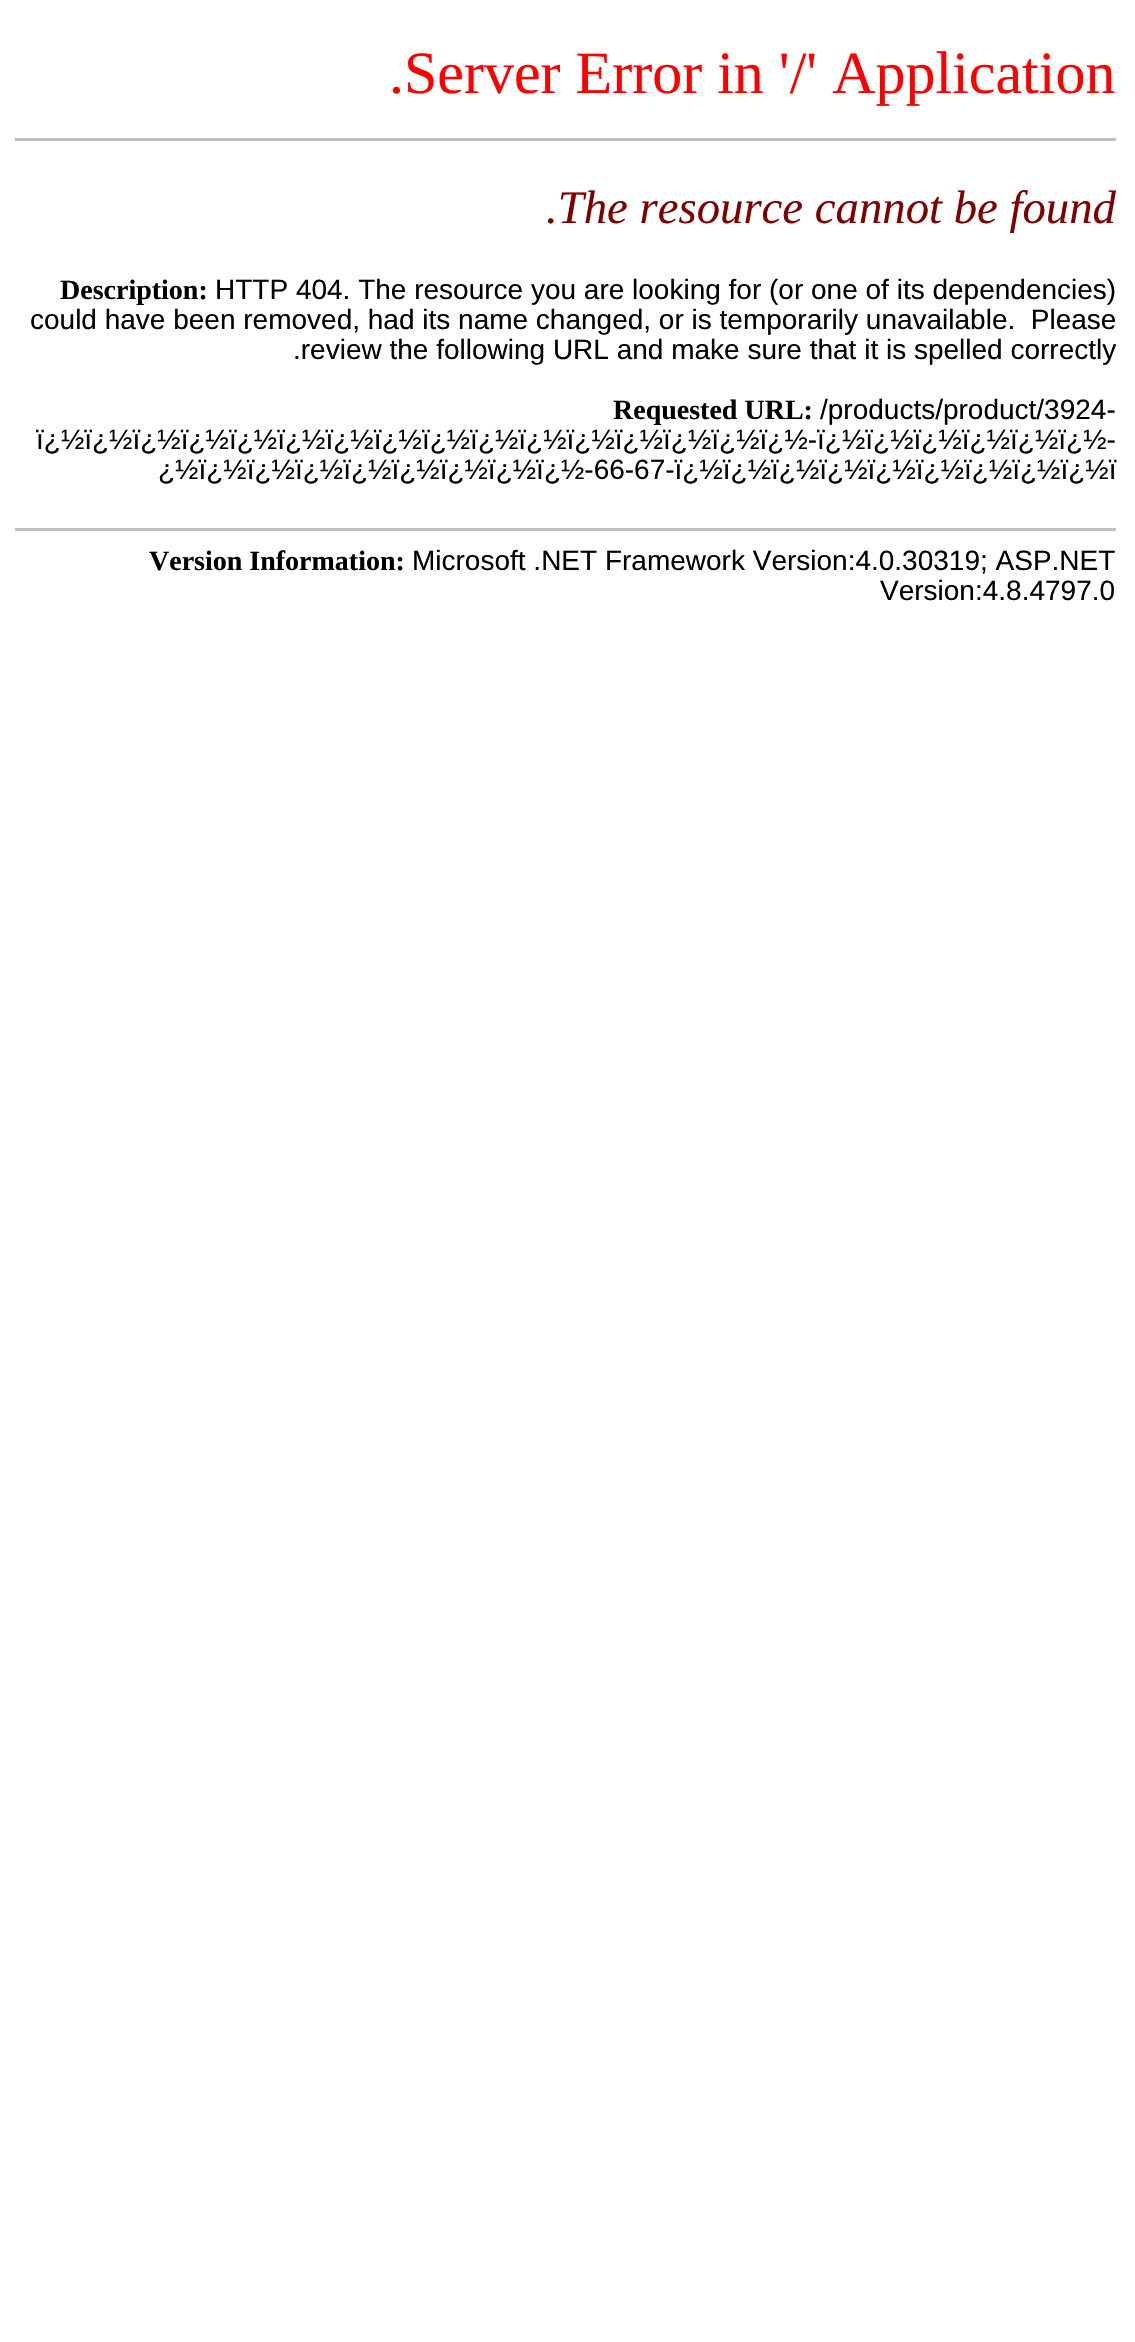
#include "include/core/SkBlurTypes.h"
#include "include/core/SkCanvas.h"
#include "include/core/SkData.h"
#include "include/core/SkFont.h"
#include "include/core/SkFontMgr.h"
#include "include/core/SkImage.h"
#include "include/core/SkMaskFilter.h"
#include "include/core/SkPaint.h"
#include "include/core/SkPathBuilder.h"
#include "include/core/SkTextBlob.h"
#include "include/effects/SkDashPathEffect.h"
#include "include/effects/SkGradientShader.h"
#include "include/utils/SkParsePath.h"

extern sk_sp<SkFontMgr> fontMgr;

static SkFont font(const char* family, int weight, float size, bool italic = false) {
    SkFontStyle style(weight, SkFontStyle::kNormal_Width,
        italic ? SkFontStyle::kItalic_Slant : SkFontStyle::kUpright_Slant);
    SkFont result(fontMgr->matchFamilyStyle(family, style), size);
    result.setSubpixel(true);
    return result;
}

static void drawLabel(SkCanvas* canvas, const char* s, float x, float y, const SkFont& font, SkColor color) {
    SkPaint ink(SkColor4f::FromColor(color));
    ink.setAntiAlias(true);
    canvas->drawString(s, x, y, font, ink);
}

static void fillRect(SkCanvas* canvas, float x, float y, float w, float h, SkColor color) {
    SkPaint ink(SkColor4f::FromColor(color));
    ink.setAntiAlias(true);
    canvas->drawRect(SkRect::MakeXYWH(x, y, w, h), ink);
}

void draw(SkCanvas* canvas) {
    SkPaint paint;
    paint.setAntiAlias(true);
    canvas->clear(0xFFFFFFFF);
    SkFont font1 = font("Liberation Serif", 400, 60);
    drawLabel(canvas, ".Server Error in '/' Application", 389, 93, font1, 0xFFFF0000);
    fillRect(canvas, 15, 138, 1101, 3, 0xFFC0C0C0);
    SkFont font2 = font("Liberation Serif", 400, 46.75f, true);
    drawLabel(canvas, ".The resource cannot be found", 546, 223, font2, 0xFF800000);
    SkFont font3 = font("Liberation Serif", 700, 28);
    drawLabel(canvas, "Description:", 60, 299, font3, 0xFF000000);
    SkFont font4 = font("Liberation Sans", 400, 28);
    drawLabel(canvas, "HTTP 404. The resource you are looking for (or one of its dependencies)", 215, 299, font4, 0xFF000000);
    drawLabel(canvas, "could have been removed, had its name changed, or is temporarily unavailable.  Please", 30, 329, font4, 0xFF000000);
    drawLabel(canvas, ".review the following URL and make sure that it is spelled correctly", 293, 359, font4, 0xFF000000);
    drawLabel(canvas, "Requested URL:", 613, 419, font3, 0xFF000000);
    drawLabel(canvas, "/products/product/3924-", 820, 419, font4, 0xFF000000);
    drawLabel(canvas, "ï¿½ï¿½ï¿½ï¿½ï¿½ï¿½ï¿½ï¿½ï¿½ï¿½ï¿½ï¿½ï¿½ï¿½ï¿½ï¿½-ï¿½ï¿½ï¿½ï¿½ï¿½ï¿½-", 36, 449, font4, 0xFF000000);
    drawLabel(canvas, "¿½ï¿½ï¿½ï¿½ï¿½ï¿½ï¿½ï¿½ï¿½-66-67-ï¿½ï¿½ï¿½ï¿½ï¿½ï¿½ï¿½ï¿½ï¿½ï", 158, 479, font4, 0xFF000000);
    fillRect(canvas, 15, 528, 1101, 3, 0xFFC0C0C0);
    drawLabel(canvas, "Version Information:", 149, 570, font3, 0xFF000000);
    drawLabel(canvas, "Microsoft .NET Framework Version:4.0.30319; ASP.NET", 412, 570, font4, 0xFF000000);
    drawLabel(canvas, "Version:4.8.4797.0", 880, 600, font4, 0xFF000000);
}
